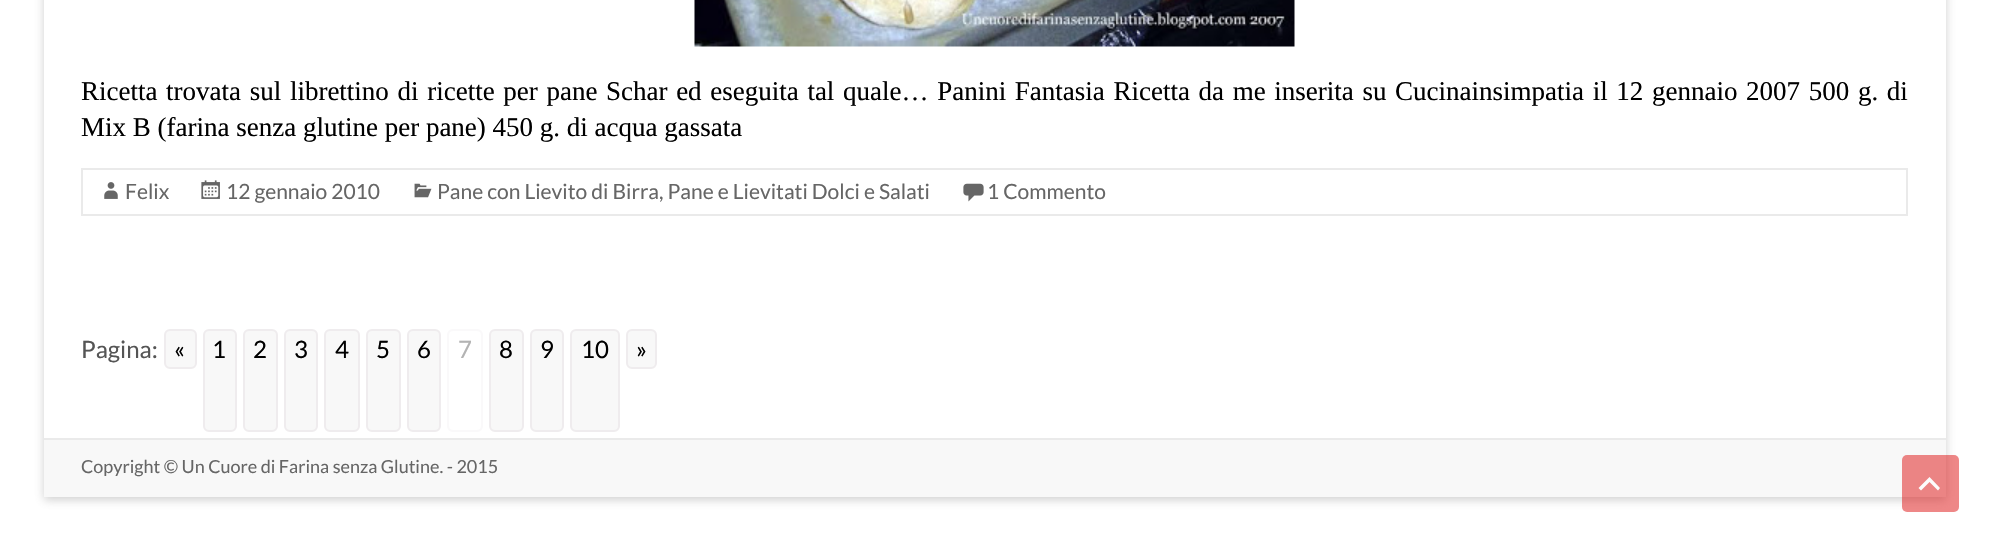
#include "include/core/SkBlurTypes.h"
#include "include/core/SkCanvas.h"
#include "include/core/SkData.h"
#include "include/core/SkFont.h"
#include "include/core/SkFontMgr.h"
#include "include/core/SkImage.h"
#include "include/core/SkMaskFilter.h"
#include "include/core/SkPaint.h"
#include "include/core/SkPathBuilder.h"
#include "include/core/SkTextBlob.h"
#include "include/effects/SkDashPathEffect.h"
#include "include/effects/SkGradientShader.h"
#include "include/utils/SkParsePath.h"

extern sk_sp<SkFontMgr> fontMgr;

static SkFont font(const char* family, int weight, float size, bool italic = false) {
    SkFontStyle style(weight, SkFontStyle::kNormal_Width,
        italic ? SkFontStyle::kItalic_Slant : SkFontStyle::kUpright_Slant);
    SkFont result(fontMgr->matchFamilyStyle(family, style), size);
    result.setSubpixel(true);
    return result;
}

static void drawLabel(SkCanvas* canvas, const char* s, float x, float y, const SkFont& font, SkColor color) {
    SkPaint ink(SkColor4f::FromColor(color));
    ink.setAntiAlias(true);
    canvas->drawString(s, x, y, font, ink);
}

static void drawTracked(SkCanvas* canvas, const char* s, float x, float y, const SkFont& font, const SkPaint& ink, float letter, float word) {
    std::vector<SkGlyphID> glyphs(font.countText(s, strlen(s), SkTextEncoding::kUTF8));
    std::vector<float> xs(glyphs.size());
    font.textToGlyphs(s, strlen(s), SkTextEncoding::kUTF8, glyphs);
    font.getXPos(glyphs, xs, x);
    float extra = 0;
    for (size_t i = 0; i < glyphs.size(); i++) {
        xs[i] += extra;
        extra += letter + word * (glyphs[i] == font.unicharToGlyph(' '));
    }
    canvas->drawTextBlob(SkTextBlob::MakeFromPosHGlyphs(glyphs, xs, y, font), 0, 0, ink);
}

static void fillRect(SkCanvas* canvas, float x, float y, float w, float h, SkColor color) {
    SkPaint ink(SkColor4f::FromColor(color));
    ink.setAntiAlias(true);
    canvas->drawRect(SkRect::MakeXYWH(x, y, w, h), ink);
}

static void fillRRect(SkCanvas* canvas, float x, float y, float w, float h, float radius, SkColor color) {
    SkPaint ink(SkColor4f::FromColor(color));
    ink.setAntiAlias(true);
    canvas->drawRoundRect(SkRect::MakeXYWH(x, y, w, h), radius, radius, ink);
}

static void drawPhoto(SkCanvas* canvas, const char* path, float x, float y, float w, float h) {
    auto image = SkImages::DeferredFromEncodedData(SkData::MakeFromFileName(path));
    canvas->drawImageRect(image, SkRect::MakeXYWH(x, y, w, h), SkSamplingOptions());
}

static SkPath parsePath(const char* data, bool evenOdd = false) {
    SkPath result = *SkParsePath::FromSVGString(data);
    if (evenOdd) result.setFillType(SkPathFillType::kEvenOdd);
    return result;
}

void draw(SkCanvas* canvas) {
    SkPaint paint;
    paint.setAntiAlias(true);
    canvas->clear(0xFFFFFFFF);
    paint.setColor(0x4D646464);
    paint.setMaskFilter(SkMaskFilter::MakeBlur(kNormal_SkBlurStyle, 4.5f));
    canvas->drawRect(SkRect::MakeXYWH(44, -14, 1902, 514), paint);
    paint.setMaskFilter(nullptr);
    fillRect(canvas, 44, 0, 1902, 438, 0xFFFFFFFF);
    drawPhoto(canvas, "assets/img1.png", 694, 0, 601, 47);
    SkFont font1 = font("Liberation Serif", 400, 27);
    paint.setColor(0xFF000000);
    drawTracked(canvas, "Ricetta trovata sul librettino di ricette per pane Schar ed eseguita tal quale… Panini Fantasia Ricetta da me inserita su Cucinainsimpatia il 12 gennaio 2007 500 g. di", 81, 100, font1, paint, 0, 1.9f);
    drawLabel(canvas, "Mix B (farina senza glutine per pane) 450 g. di acqua gassata", 81, 136, font1, 0xFF000000);
    paint.setStroke(true);
    paint.setStrokeWidth(2);
    paint.setColor(0xFFEAEAEA);
    canvas->drawRect(SkRect::MakeXYWH(82, 169, 1825, 46), paint);
    drawPhoto(canvas, "assets/img2.png", 104, 182, 14, 17);
    SkFont font2 = font("Lato", 400, 21);
    drawLabel(canvas, "Felix", 125, 199, font2, 0xFF666666);
    drawPhoto(canvas, "assets/img3.png", 201, 180, 19, 19);
    drawLabel(canvas, "12 gennaio 2010", 226, 199, font2, 0xFF666666);
    drawPhoto(canvas, "assets/img4.png", 414, 183, 18, 15);
    drawLabel(canvas, "Pane con Lievito di Birra, Pane e Lievitati Dolci e Salati", 437, 199, font2, 0xFF666666);
    drawPhoto(canvas, "assets/img5.png", 963, 183, 21, 19);
    drawLabel(canvas, "1 Commento", 987, 199, font2, 0xFF666666);
    SkFont font3 = font("Lato", 400, 24);
    drawLabel(canvas, "Pagina:", 81, 358, font3, 0xFF555555);
    paint.setStroke(false);
    paint.setColor(0xFFF8F8F8);
    canvas->drawRoundRect(SkRect::MakeXYWH(165, 330, 31, 38), 5, 5, paint);
    paint.setStroke(true);
    paint.setColor(0xFFEFECEE);
    canvas->drawRoundRect(SkRect::MakeXYWH(165, 330, 31, 38), 5, 5, paint);
    drawLabel(canvas, "«", 174, 358, font3, 0xFF000000);
    paint.setStroke(false);
    paint.setColor(0xFFF8F8F8);
    canvas->drawRoundRect(SkRect::MakeXYWH(204, 330, 32, 101), 5, 5, paint);
    paint.setStroke(true);
    paint.setColor(0xFFEFECEE);
    canvas->drawRoundRect(SkRect::MakeXYWH(204, 330, 32, 101), 5, 5, paint);
    drawLabel(canvas, "1", 212, 358, font3, 0xFF000000);
    paint.setStroke(false);
    paint.setColor(0xFFF8F8F8);
    canvas->drawRoundRect(SkRect::MakeXYWH(244, 330, 33, 101), 5, 5, paint);
    paint.setStroke(true);
    paint.setColor(0xFFEFECEE);
    canvas->drawRoundRect(SkRect::MakeXYWH(244, 330, 33, 101), 5, 5, paint);
    drawLabel(canvas, "2", 253, 358, font3, 0xFF000000);
    paint.setStroke(false);
    paint.setColor(0xFFF8F8F8);
    canvas->drawRoundRect(SkRect::MakeXYWH(285, 330, 32, 101), 5, 5, paint);
    paint.setStroke(true);
    paint.setColor(0xFFEFECEE);
    canvas->drawRoundRect(SkRect::MakeXYWH(285, 330, 32, 101), 5, 5, paint);
    drawLabel(canvas, "3", 294, 358, font3, 0xFF000000);
    paint.setStroke(false);
    paint.setColor(0xFFF8F8F8);
    canvas->drawRoundRect(SkRect::MakeXYWH(325, 330, 34, 101), 5, 5, paint);
    paint.setStroke(true);
    paint.setColor(0xFFEFECEE);
    canvas->drawRoundRect(SkRect::MakeXYWH(325, 330, 34, 101), 5, 5, paint);
    drawLabel(canvas, "4", 335, 358, font3, 0xFF000000);
    paint.setStroke(false);
    paint.setColor(0xFFF8F8F8);
    canvas->drawRoundRect(SkRect::MakeXYWH(367, 330, 33, 101), 5, 5, paint);
    paint.setStroke(true);
    paint.setColor(0xFFEFECEE);
    canvas->drawRoundRect(SkRect::MakeXYWH(367, 330, 33, 101), 5, 5, paint);
    drawLabel(canvas, "5", 376, 358, font3, 0xFF000000);
    paint.setStroke(false);
    paint.setColor(0xFFF8F8F8);
    canvas->drawRoundRect(SkRect::MakeXYWH(408, 330, 32, 101), 5, 5, paint);
    paint.setStroke(true);
    paint.setColor(0xFFEFECEE);
    canvas->drawRoundRect(SkRect::MakeXYWH(408, 330, 32, 101), 5, 5, paint);
    drawLabel(canvas, "6", 417, 358, font3, 0xFF000000);
    paint.setColor(0xFFFAF9FA);
    canvas->drawRoundRect(SkRect::MakeXYWH(448, 330, 34, 101), 5, 5, paint);
    drawLabel(canvas, "7", 458, 358, font3, 0xFFB3B3B3);
    paint.setStroke(false);
    paint.setColor(0xFFF8F8F8);
    canvas->drawRoundRect(SkRect::MakeXYWH(490, 330, 33, 101), 5, 5, paint);
    paint.setStroke(true);
    paint.setColor(0xFFEFECEE);
    canvas->drawRoundRect(SkRect::MakeXYWH(490, 330, 33, 101), 5, 5, paint);
    drawLabel(canvas, "8", 499, 358, font3, 0xFF000000);
    paint.setStroke(false);
    paint.setColor(0xFFF8F8F8);
    canvas->drawRoundRect(SkRect::MakeXYWH(531, 330, 32, 101), 5, 5, paint);
    paint.setStroke(true);
    paint.setColor(0xFFEFECEE);
    canvas->drawRoundRect(SkRect::MakeXYWH(531, 330, 32, 101), 5, 5, paint);
    drawLabel(canvas, "9", 540, 358, font3, 0xFF000000);
    paint.setStroke(false);
    paint.setColor(0xFFF8F8F8);
    canvas->drawRoundRect(SkRect::MakeXYWH(571, 330, 48, 101), 5, 5, paint);
    paint.setStroke(true);
    paint.setColor(0xFFEFECEE);
    canvas->drawRoundRect(SkRect::MakeXYWH(571, 330, 48, 101), 5, 5, paint);
    drawLabel(canvas, "10", 581, 358, font3, 0xFF000000);
    paint.setStroke(false);
    paint.setColor(0xFFF8F8F8);
    canvas->drawRoundRect(SkRect::MakeXYWH(627, 330, 29, 38), 5, 5, paint);
    paint.setStroke(true);
    paint.setColor(0xFFEFECEE);
    canvas->drawRoundRect(SkRect::MakeXYWH(627, 330, 29, 38), 5, 5, paint);
    drawLabel(canvas, "»", 636, 358, font3, 0xFF000000);
    fillRect(canvas, 44, 440, 1902, 57, 0xFFF8F8F8);
    fillRect(canvas, 44, 438, 1902, 2, 0xFFEAEAEA);
    SkFont font4 = font("Lato", 400, 18);
    drawLabel(canvas, "Copyright © Un Cuore di Farina senza Glutine. - 2015", 81, 473, font4, 0xFF666666);
    fillRRect(canvas, 1902, 455, 57, 57, 5, 0x80DD0F0F);
    paint.setStroke(false);
    paint.setColor(0xFFFCFCFC);
    canvas->drawPath(parsePath("M1938 490.5L1929.5 482L1921 490.5L1918.5 488L1929.5 477L1940 488Z"), paint);
}
